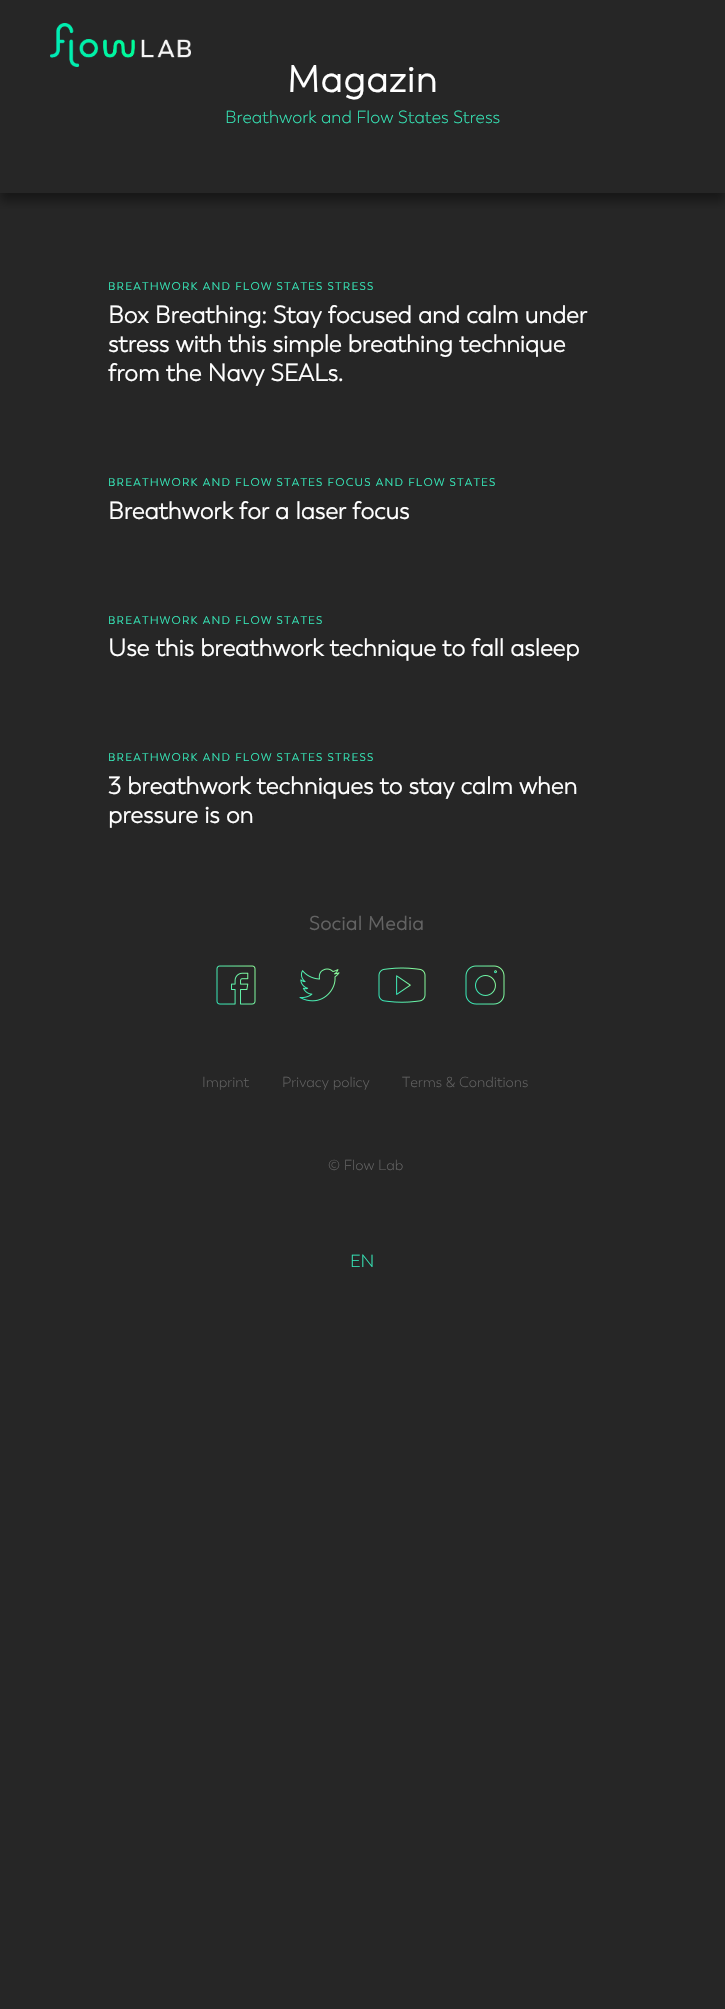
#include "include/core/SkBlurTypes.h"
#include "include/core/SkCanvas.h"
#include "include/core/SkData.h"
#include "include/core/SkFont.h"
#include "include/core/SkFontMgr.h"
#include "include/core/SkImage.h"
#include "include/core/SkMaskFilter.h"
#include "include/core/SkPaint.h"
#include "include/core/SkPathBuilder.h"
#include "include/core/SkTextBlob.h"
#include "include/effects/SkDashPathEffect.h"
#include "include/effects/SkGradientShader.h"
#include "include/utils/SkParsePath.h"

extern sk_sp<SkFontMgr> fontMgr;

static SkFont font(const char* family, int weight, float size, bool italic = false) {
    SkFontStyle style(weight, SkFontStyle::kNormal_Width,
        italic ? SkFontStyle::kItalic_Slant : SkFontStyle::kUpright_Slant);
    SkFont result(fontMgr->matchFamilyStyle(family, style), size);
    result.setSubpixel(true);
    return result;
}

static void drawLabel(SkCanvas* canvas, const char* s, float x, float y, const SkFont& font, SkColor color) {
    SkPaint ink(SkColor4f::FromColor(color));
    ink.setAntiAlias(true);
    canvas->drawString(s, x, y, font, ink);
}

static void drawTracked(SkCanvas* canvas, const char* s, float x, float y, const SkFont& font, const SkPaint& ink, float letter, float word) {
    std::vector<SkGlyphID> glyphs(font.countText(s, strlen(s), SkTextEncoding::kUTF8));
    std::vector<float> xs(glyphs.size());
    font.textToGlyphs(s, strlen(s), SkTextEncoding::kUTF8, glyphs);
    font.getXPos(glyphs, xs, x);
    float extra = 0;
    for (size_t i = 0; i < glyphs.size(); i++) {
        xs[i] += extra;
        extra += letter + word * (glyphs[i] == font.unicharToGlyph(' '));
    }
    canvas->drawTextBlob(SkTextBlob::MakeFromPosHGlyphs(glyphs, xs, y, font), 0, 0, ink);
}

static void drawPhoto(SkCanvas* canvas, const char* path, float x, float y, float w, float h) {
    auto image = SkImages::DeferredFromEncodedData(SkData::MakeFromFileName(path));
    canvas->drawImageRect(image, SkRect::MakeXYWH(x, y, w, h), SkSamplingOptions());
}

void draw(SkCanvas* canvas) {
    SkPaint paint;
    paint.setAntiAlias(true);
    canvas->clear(0xFF262626);
    canvas->save();
    canvas->clipRect(SkRect::MakeXYWH(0, 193, 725, 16));
    paint.setColor(0x66000000);
    paint.setMaskFilter(SkMaskFilter::MakeBlur(kNormal_SkBlurStyle, 5));
    canvas->drawRect(SkRect::MakeXYWH(0, 8, 725, 193), paint);
    paint.setMaskFilter(nullptr);
    canvas->restore();
    drawPhoto(canvas, "assets/img1.png", 50, 23, 141, 44);
    SkFont font1 = font("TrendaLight", 700, 37);
    paint.setColor(0xFFFFFFFF);
    drawTracked(canvas, "Magazin", 287, 92, font1, paint, 1, 0);
    SkFont font2 = font("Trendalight", 400, 17.6f);
    drawLabel(canvas, "Breathwork and Flow States Stress", 225, 123, font2, 0xFF36E9B9);
    SkFont font3 = font("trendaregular", 400, 11.2f);
    paint.setColor(0xFF36E9B9);
    drawTracked(canvas, "BREATHWORK AND FLOW STATES STRESS", 108, 290, font3, paint, 1.2f, 0);
    SkFont font4 = font("TrendaLight", 700, 24);
    drawLabel(canvas, "Box Breathing: Stay focused and calm under", 108, 323, font4, 0xFFFFFFFF);
    drawLabel(canvas, "stress with this simple breathing technique", 108, 352, font4, 0xFFFFFFFF);
    drawLabel(canvas, "from the Navy SEALs.", 108, 381, font4, 0xFFFFFFFF);
    drawTracked(canvas, "BREATHWORK AND FLOW STATES FOCUS AND FLOW STATES", 108, 486, font3, paint, 1.2f, 0);
    drawLabel(canvas, "Breathwork for a laser focus", 108, 519, font4, 0xFFFFFFFF);
    drawTracked(canvas, "BREATHWORK AND FLOW STATES", 108, 624, font3, paint, 1.2f, 0);
    drawLabel(canvas, "Use this breathwork technique to fall asleep", 108, 656, font4, 0xFFFFFFFF);
    drawTracked(canvas, "BREATHWORK AND FLOW STATES STRESS", 108, 761, font3, paint, 1.2f, 0);
    drawLabel(canvas, "3 breathwork techniques to stay calm when", 108, 794, font4, 0xFFFFFFFF);
    drawLabel(canvas, "pressure is on", 108, 823, font4, 0xFFFFFFFF);
    SkFont font5 = font("TrendaLight", 700, 19.25f);
    paint.setColor(0xFF636363);
    drawTracked(canvas, "Social Media", 309, 930, font5, paint, 0.5f, 0);
    drawPhoto(canvas, "assets/img2.png", 216, 965, 40, 40);
    drawPhoto(canvas, "assets/img3.png", 299, 968, 41, 34);
    drawPhoto(canvas, "assets/img4.png", 378, 967, 48, 36);
    drawPhoto(canvas, "assets/img5.png", 465, 965, 40, 40);
    SkFont font6 = font("Trendalight", 400, 14.5f);
    drawLabel(canvas, "Imprint", 202, 1087, font6, 0xFF636363);
    drawLabel(canvas, "Privacy policy", 282, 1087, font6, 0xFF636363);
    drawLabel(canvas, "Terms & Conditions", 402, 1087, font6, 0xFF636363);
    drawLabel(canvas, "© Flow Lab", 328, 1170, font6, 0xFF636363);
    drawLabel(canvas, "EN", 350, 1267, font2, 0xFF36E9B9);
}
